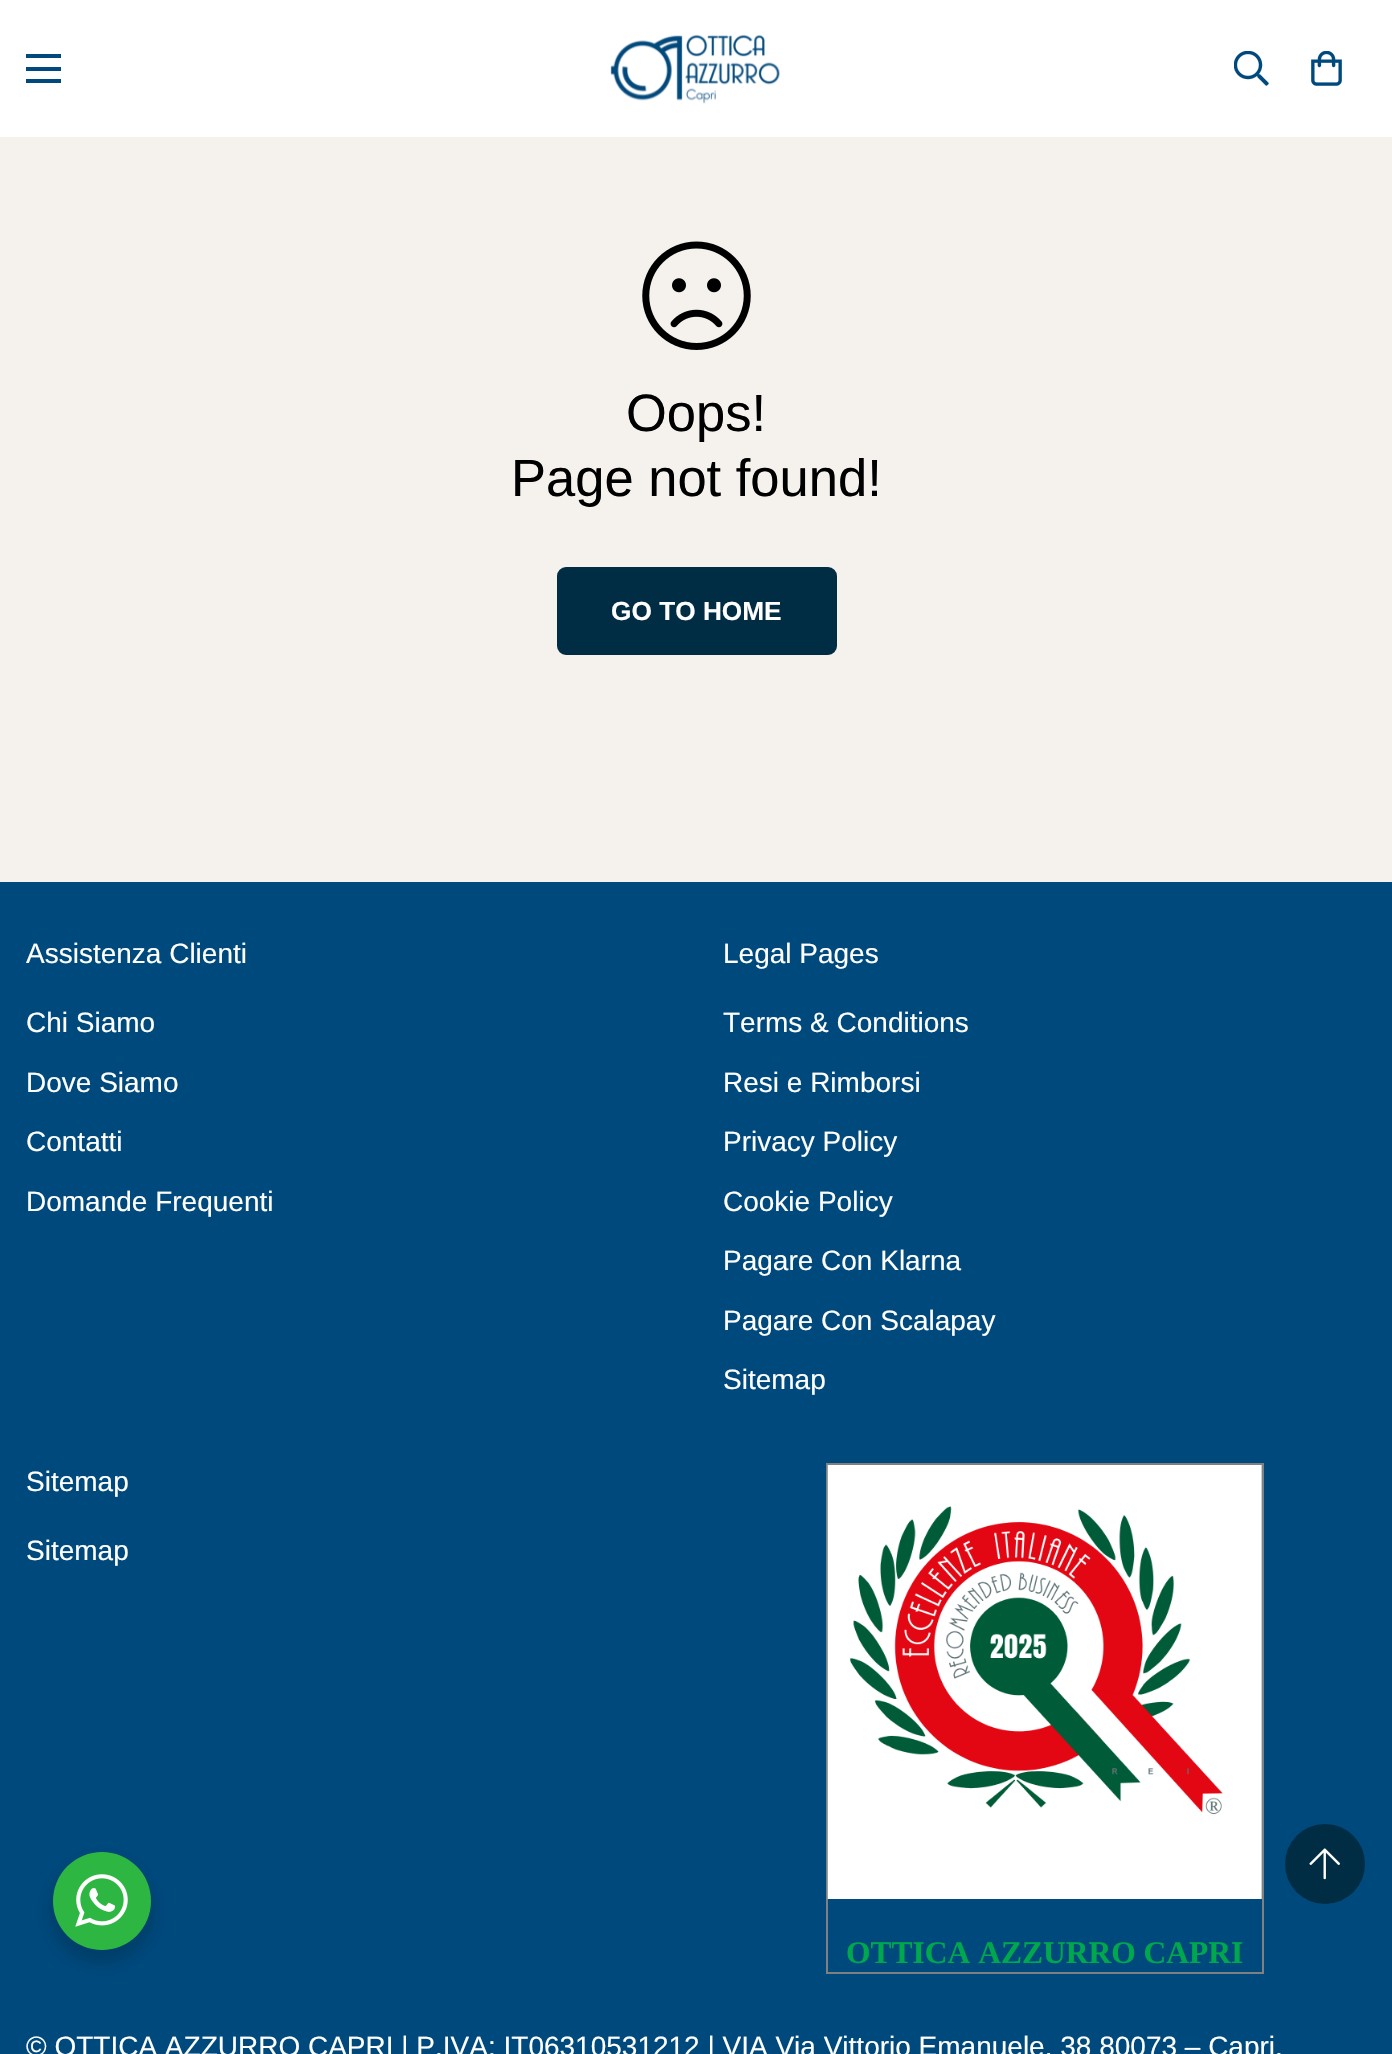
#include "include/core/SkBlurTypes.h"
#include "include/core/SkCanvas.h"
#include "include/core/SkData.h"
#include "include/core/SkFont.h"
#include "include/core/SkFontMgr.h"
#include "include/core/SkImage.h"
#include "include/core/SkMaskFilter.h"
#include "include/core/SkPaint.h"
#include "include/core/SkPathBuilder.h"
#include "include/core/SkTextBlob.h"
#include "include/effects/SkDashPathEffect.h"
#include "include/effects/SkGradientShader.h"
#include "include/utils/SkParsePath.h"

extern sk_sp<SkFontMgr> fontMgr;

static SkFont font(const char* family, int weight, float size, bool italic = false) {
    SkFontStyle style(weight, SkFontStyle::kNormal_Width,
        italic ? SkFontStyle::kItalic_Slant : SkFontStyle::kUpright_Slant);
    SkFont result(fontMgr->matchFamilyStyle(family, style), size);
    result.setSubpixel(true);
    return result;
}

static void drawLabel(SkCanvas* canvas, const char* s, float x, float y, const SkFont& font, SkColor color) {
    SkPaint ink(SkColor4f::FromColor(color));
    ink.setAntiAlias(true);
    canvas->drawString(s, x, y, font, ink);
}

static void fillRect(SkCanvas* canvas, float x, float y, float w, float h, SkColor color) {
    SkPaint ink(SkColor4f::FromColor(color));
    ink.setAntiAlias(true);
    canvas->drawRect(SkRect::MakeXYWH(x, y, w, h), ink);
}

static void drawPhoto(SkCanvas* canvas, const char* path, float x, float y, float w, float h) {
    auto image = SkImages::DeferredFromEncodedData(SkData::MakeFromFileName(path));
    canvas->drawImageRect(image, SkRect::MakeXYWH(x, y, w, h), SkSamplingOptions());
}

void draw(SkCanvas* canvas) {
    SkPaint paint;
    paint.setAntiAlias(true);
    canvas->clear(0xFFF5F1ED);
    fillRect(canvas, 0, 0, 1392, 137, 0xFFFFFFFF);
    fillRect(canvas, 26, 67, 35, 4, 0xFF00497C);
    fillRect(canvas, 26, 54, 35, 4, 0xFF00497C);
    fillRect(canvas, 26, 79, 35, 4, 0xFF00497C);
    drawPhoto(canvas, "assets/img1.png", 610, 34, 170, 70);
    drawPhoto(canvas, "assets/img2.png", 1234, 51, 35, 35);
    drawPhoto(canvas, "assets/img3.png", 1311, 51, 31, 35);
    drawPhoto(canvas, "assets/img4.png", 642, 241, 109, 109);
    SkFont font1 = font("Liberation Sans", 400, 52.5f);
    drawLabel(canvas, "Oops!", 626, 431, font1, 0xFF000000);
    drawLabel(canvas, "Page not found!", 511, 496, font1, 0xFF000000);
    paint.setColor(0xFF012D44);
    canvas->drawRoundRect(SkRect::MakeXYWH(558, 568, 278, 86), 8, 8, paint);
    paint.setStroke(true);
    paint.setStrokeWidth(2);
    canvas->drawRoundRect(SkRect::MakeXYWH(558, 568, 278, 86), 8, 8, paint);
    SkFont font2 = font("Liberation Sans", 700, 26.25f);
    drawLabel(canvas, "GO TO HOME", 611, 620, font2, 0xFFFFFFFF);
    fillRect(canvas, 0, 882, 1392, 1172, 0xFF00497C);
    SkFont font3 = font("Liberation Sans", 400, 28);
    drawLabel(canvas, "Assistenza Clienti", 26, 963, font3, 0xFFFFFFFF);
    drawLabel(canvas, "Chi Siamo", 26, 1032, font3, 0xFFFFFFFF);
    drawLabel(canvas, "Dove Siamo", 26, 1092, font3, 0xFFFFFFFF);
    drawLabel(canvas, "Contatti", 26, 1151, font3, 0xFFFFFFFF);
    drawLabel(canvas, "Domande Frequenti", 26, 1211, font3, 0xFFFFFFFF);
    drawLabel(canvas, "Legal Pages", 723, 963, font3, 0xFFFFFFFF);
    drawLabel(canvas, "Terms & Conditions", 723, 1032, font3, 0xFFFFFFFF);
    drawLabel(canvas, "Resi e Rimborsi", 723, 1092, font3, 0xFFFFFFFF);
    drawLabel(canvas, "Privacy Policy", 723, 1151, font3, 0xFFFFFFFF);
    drawLabel(canvas, "Cookie Policy", 723, 1211, font3, 0xFFFFFFFF);
    drawLabel(canvas, "Pagare Con Klarna", 723, 1270, font3, 0xFFFFFFFF);
    drawLabel(canvas, "Pagare Con Scalapay", 723, 1330, font3, 0xFFFFFFFF);
    drawLabel(canvas, "Sitemap", 723, 1389, font3, 0xFFFFFFFF);
    drawLabel(canvas, "Sitemap", 26, 1491, font3, 0xFFFFFFFF);
    drawLabel(canvas, "Sitemap", 26, 1560, font3, 0xFFFFFFFF);
    paint.setColor(0xFF808080);
    canvas->drawRect(SkRect::MakeXYWH(827, 1464, 436, 509), paint);
    drawPhoto(canvas, "assets/img5.png", 827, 1465, 435, 434);
    SkFont font4 = font("Liberation Serif", 700, 31.5f);
    drawLabel(canvas, "OTTICA AZZURRO CAPRI", 846, 1963, font4, 0xFF00A74C);
    drawLabel(canvas, "© OTTICA AZZURRO CAPRI | P.IVA: IT06310531212 | VIA Via Vittorio Emanuele, 38 80073 – Capri.", 26, 2056, font3, 0xFFFFFFFF);
    paint.setStroke(false);
    paint.setColor(0xFF012D44);
    canvas->drawCircle(1325, 1864, 39, paint);
    paint.setStroke(true);
    canvas->drawCircle(1325, 1864, 39, paint);
    drawPhoto(canvas, "assets/img6.png", 1309, 1848, 31, 32);
    paint.setStroke(false);
    paint.setColor(0x24000000);
    paint.setMaskFilter(SkMaskFilter::MakeBlur(kNormal_SkBlurStyle, 7));
    canvas->drawRoundRect(SkRect::MakeXYWH(49, 1859, 105, 105), 52.5f, 52.5f, paint);
    paint.setMaskFilter(nullptr);
    paint.setColor(0xFF2DB742);
    canvas->drawCircle(102, 1901, 49, paint);
    drawPhoto(canvas, "assets/img7.png", 75, 1874, 53, 53);
}
